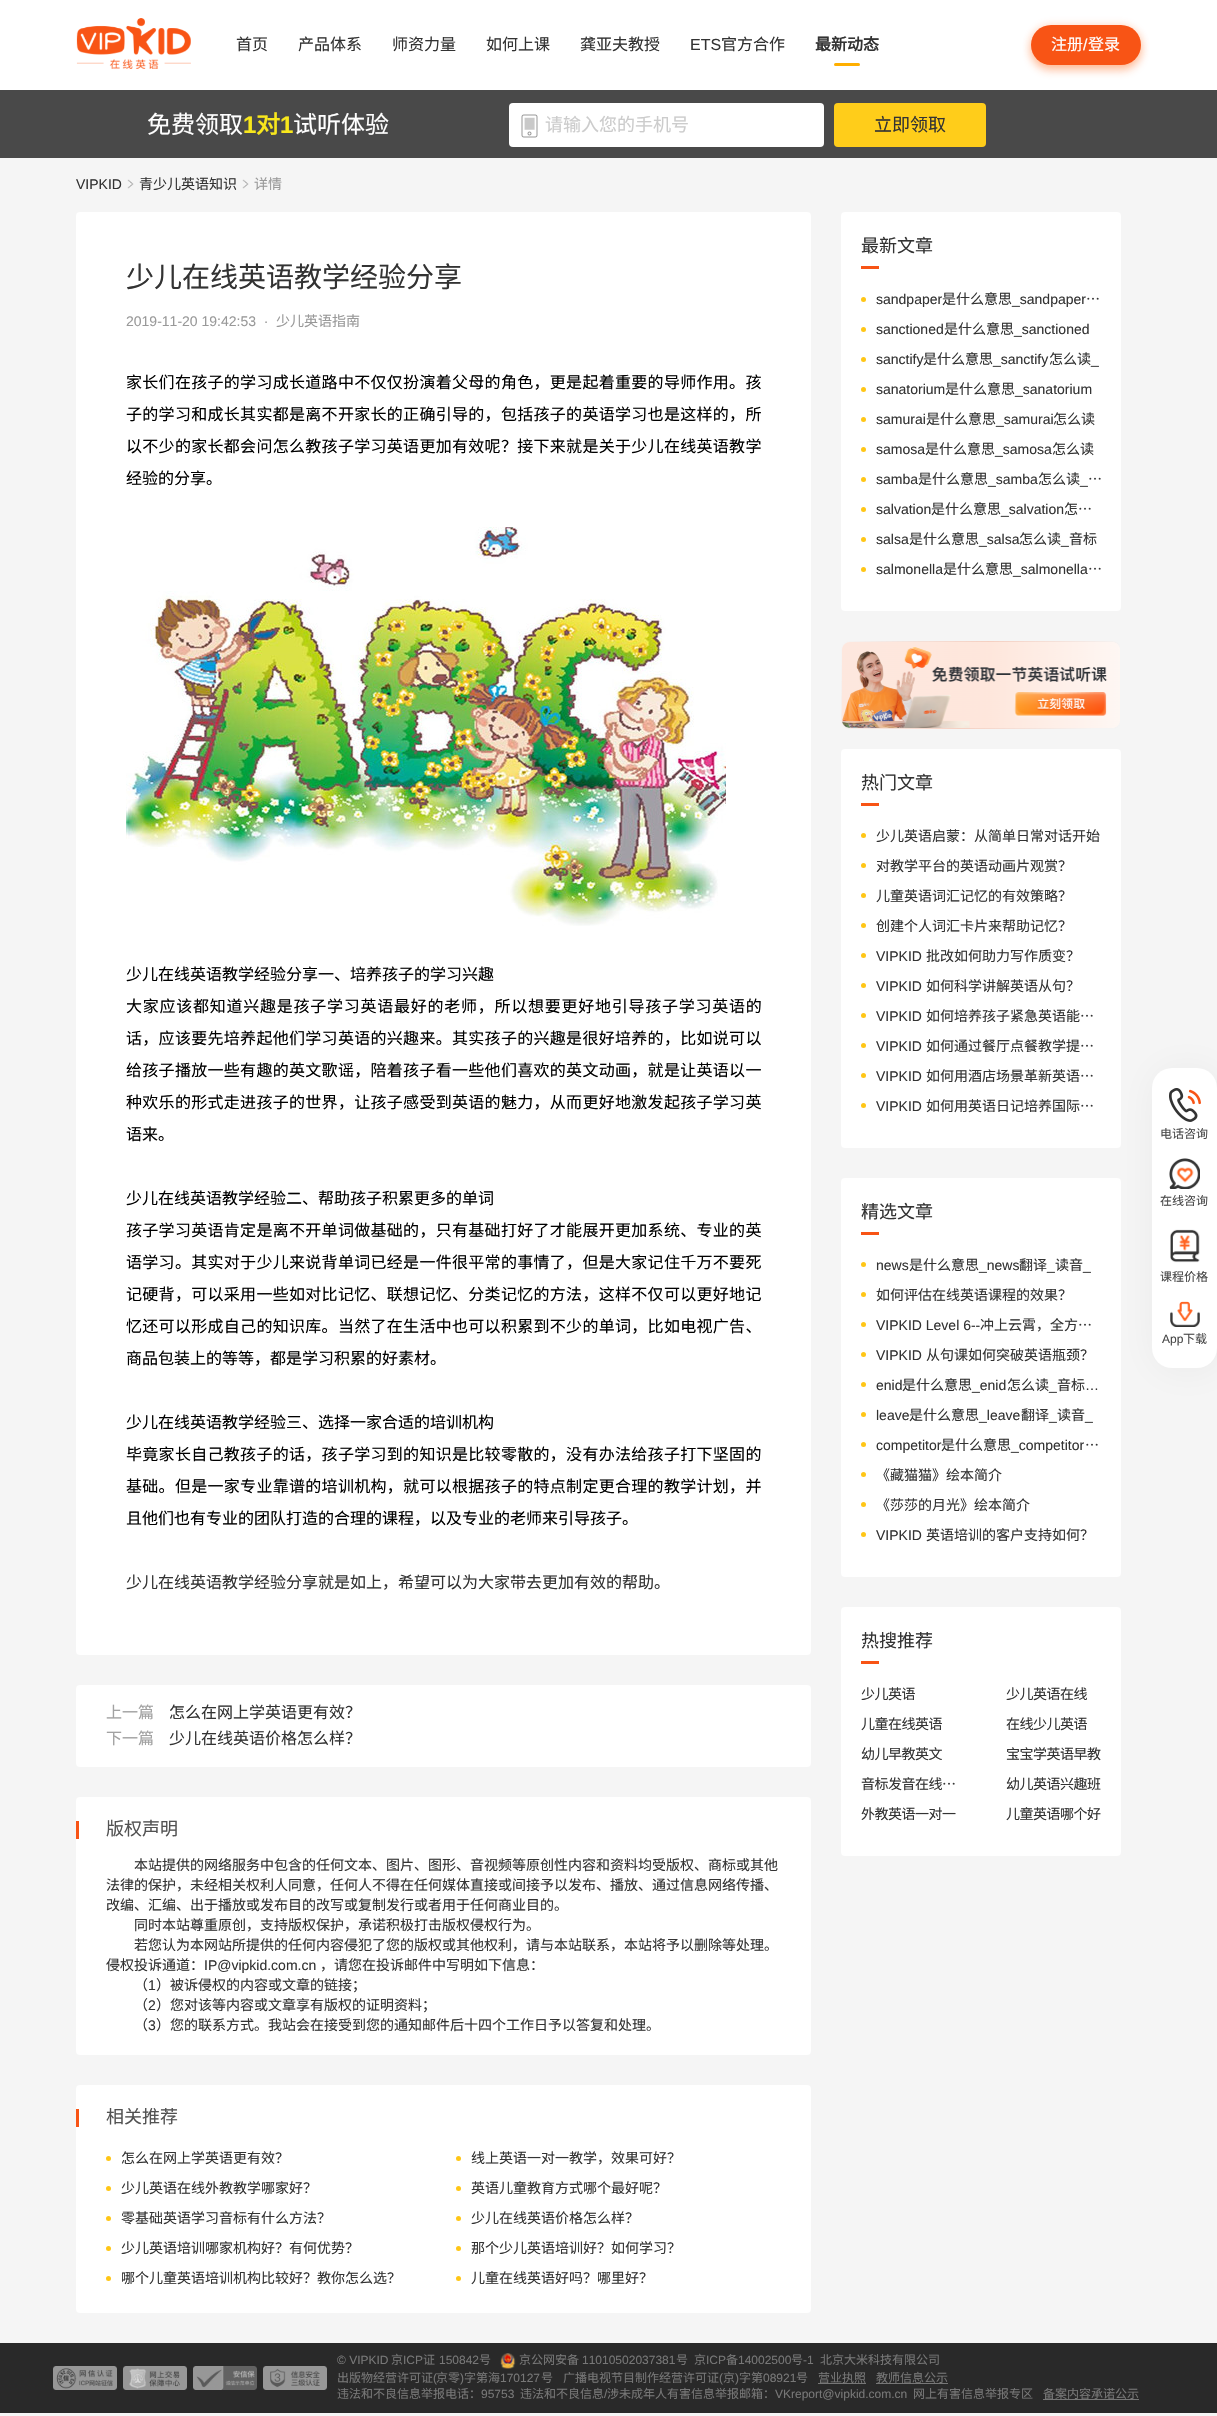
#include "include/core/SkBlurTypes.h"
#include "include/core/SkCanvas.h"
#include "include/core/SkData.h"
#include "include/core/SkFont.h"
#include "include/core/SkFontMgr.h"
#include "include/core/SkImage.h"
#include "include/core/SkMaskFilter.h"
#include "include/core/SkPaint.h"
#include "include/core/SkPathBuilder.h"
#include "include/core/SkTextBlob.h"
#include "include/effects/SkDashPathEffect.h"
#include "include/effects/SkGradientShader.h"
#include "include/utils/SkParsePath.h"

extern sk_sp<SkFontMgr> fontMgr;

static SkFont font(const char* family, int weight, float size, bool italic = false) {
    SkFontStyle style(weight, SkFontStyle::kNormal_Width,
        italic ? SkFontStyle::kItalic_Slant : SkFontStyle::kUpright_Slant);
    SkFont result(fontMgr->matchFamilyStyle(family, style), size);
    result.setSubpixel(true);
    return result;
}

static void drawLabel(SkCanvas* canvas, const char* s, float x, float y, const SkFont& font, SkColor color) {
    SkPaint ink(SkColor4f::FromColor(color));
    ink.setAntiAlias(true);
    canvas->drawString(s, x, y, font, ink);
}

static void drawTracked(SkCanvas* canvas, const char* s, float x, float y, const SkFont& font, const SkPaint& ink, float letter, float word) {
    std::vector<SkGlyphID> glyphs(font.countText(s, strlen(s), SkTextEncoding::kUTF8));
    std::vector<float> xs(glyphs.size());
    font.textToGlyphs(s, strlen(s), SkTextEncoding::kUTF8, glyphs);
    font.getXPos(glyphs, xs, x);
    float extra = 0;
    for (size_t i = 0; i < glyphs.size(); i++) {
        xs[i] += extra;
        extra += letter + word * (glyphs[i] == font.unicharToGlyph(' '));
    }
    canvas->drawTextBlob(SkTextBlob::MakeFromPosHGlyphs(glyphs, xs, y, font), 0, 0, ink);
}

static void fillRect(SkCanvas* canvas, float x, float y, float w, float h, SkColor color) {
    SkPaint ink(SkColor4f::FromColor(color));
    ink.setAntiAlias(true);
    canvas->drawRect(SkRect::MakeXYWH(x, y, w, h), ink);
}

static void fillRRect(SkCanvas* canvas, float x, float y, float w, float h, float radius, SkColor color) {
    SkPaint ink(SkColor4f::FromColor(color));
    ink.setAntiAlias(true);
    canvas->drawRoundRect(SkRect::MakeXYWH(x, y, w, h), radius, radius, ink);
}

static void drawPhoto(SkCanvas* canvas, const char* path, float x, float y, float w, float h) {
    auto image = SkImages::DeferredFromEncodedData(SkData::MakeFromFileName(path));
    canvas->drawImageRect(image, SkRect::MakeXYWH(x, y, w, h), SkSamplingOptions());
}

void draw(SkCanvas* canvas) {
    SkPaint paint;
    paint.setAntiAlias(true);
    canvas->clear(0xFFF5F5F5);
    fillRect(canvas, 0, 0, 1217, 90, 0xFFFFFFFF);
    drawPhoto(canvas, "assets/img1.png", 76, 18, 115, 51);
    SkFont font1 = font("Noto Sans CJK SC", 400, 16);
    drawLabel(canvas, "首页", 236, 50, font1, 0xFF333333);
    drawLabel(canvas, "产品体系", 298, 50, font1, 0xFF333333);
    drawLabel(canvas, "师资力量", 392, 50, font1, 0xFF333333);
    drawLabel(canvas, "如何上课", 486, 50, font1, 0xFF333333);
    drawLabel(canvas, "龚亚夫教授", 580, 50, font1, 0xFF333333);
    SkFont font2 = font("Liberation Sans", 400, 16);
    drawLabel(canvas, "ETS", 690, 50, font2, 0xFF333333);
    drawLabel(canvas, "官方合作", 721, 50, font1, 0xFF333333);
    SkFont font3 = font("Noto Sans CJK SC", 700, 16);
    drawLabel(canvas, "最新动态", 815, 50, font3, 0xFF333333);
    fillRRect(canvas, 834, 63, 26, 3, 1.5f, 0xFFFFAF00);
    paint.setColor(0x66FF671A);
    paint.setMaskFilter(SkMaskFilter::MakeBlur(kNormal_SkBlurStyle, 5));
    canvas->drawRoundRect(SkRect::MakeXYWH(1031, 30, 110, 40), 20, 20, paint);
    paint.setMaskFilter(nullptr);
    paint.setColor(0x33FF671A);
    paint.setMaskFilter(SkMaskFilter::MakeBlur(kNormal_SkBlurStyle, 5));
    canvas->drawRoundRect(SkRect::MakeXYWH(1031, 25, 110, 40), 20, 20, paint);
    paint.setMaskFilter(nullptr);
    fillRRect(canvas, 1031, 25, 110, 40, 20, 0xFFF85415);
    drawLabel(canvas, "注册", 1051, 50, font1, 0xFFFFFFFF);
    drawLabel(canvas, "/", 1083, 50, font2, 0xFFFFFFFF);
    drawLabel(canvas, "登录", 1088, 50, font1, 0xFFFFFFFF);
    fillRect(canvas, 0, 90, 1217, 68, 0xFF494949);
    SkFont font4 = font("Noto Sans CJK SC", 400, 24);
    drawLabel(canvas, "免费领取", 147, 133, font4, 0xFFFFFFFF);
    SkFont font5 = font("Liberation Sans", 700, 24);
    drawLabel(canvas, "1", 243, 133, font5, 0xFFF8E71C);
    SkFont font6 = font("Noto Sans CJK SC", 700, 24);
    drawLabel(canvas, "对", 256, 133, font6, 0xFFF8E71C);
    drawLabel(canvas, "1", 280, 133, font5, 0xFFF8E71C);
    drawLabel(canvas, "试听体验", 293, 133, font4, 0xFFFFFFFF);
    fillRRect(canvas, 509, 103, 315, 44, 4, 0xFFFFFFFF);
    drawPhoto(canvas, "assets/img2.png", 521, 114, 17, 24);
    SkFont font7 = font("Noto Sans CJK SC", 400, 18);
    drawLabel(canvas, "请输入您的手机号", 545, 131, font7, 0xFFCCCCCC);
    fillRRect(canvas, 834, 103, 152, 44, 4, 0xFFFFCD1A);
    drawLabel(canvas, "立即领取", 874, 131, font7, 0xFF333333);
    SkFont font8 = font("Liberation Sans", 400, 14);
    drawLabel(canvas, "VIPKID", 76, 189, font8, 0xFF333333);
    drawPhoto(canvas, "assets/img3.png", 127, 179, 7, 10);
    SkFont font9 = font("Noto Sans CJK SC", 400, 14);
    drawLabel(canvas, "青少儿英语知识", 139, 189, font9, 0xFF333333);
    drawPhoto(canvas, "assets/img4.png", 242, 179, 7, 10);
    drawLabel(canvas, "详情", 254, 189, font9, 0xFF999999);
    fillRRect(canvas, 76, 212, 735, 1443, 4, 0xFFFFFFFF);
    SkFont font10 = font("Noto Sans CJK SC", 400, 28);
    drawLabel(canvas, "少儿在线英语教学经验分享", 126, 287, font10, 0xFF333333);
    drawLabel(canvas, "2019-11-20 19:42:53  ·", 126, 326, font8, 0xFF999999);
    drawLabel(canvas, "少儿英语指南", 276, 326, font9, 0xFF999999);
    paint.setColor(0xFF000000);
    drawTracked(canvas, "家长们在孩子的学习成长道路中不仅仅扮演着父母的角色，更是起着重要的导师作用。孩", 126, 388, font1, paint, 0.3f, 0);
    drawTracked(canvas, "子的学习和成长其实都是离不开家长的正确引导的，包括孩子的英语学习也是这样的，所", 126, 420, font1, paint, 0.3f, 0);
    drawTracked(canvas, "以不少的家长都会问怎么教孩子学习英语更加有效呢？接下来就是关于少儿在线英语教学", 126, 452, font1, paint, 0.3f, 0);
    drawLabel(canvas, "经验的分享。", 126, 484, font1, 0xFF000000);
    drawPhoto(canvas, "assets/img5.png", 126, 527, 600, 399);
    drawLabel(canvas, "少儿在线英语教学经验分享一、培养孩子的学习兴趣", 126, 980, font1, 0xFF000000);
    drawTracked(canvas, "大家应该都知道兴趣是孩子学习英语最好的老师，所以想要更好地引导孩子学习英语的", 126, 1012, font1, paint, 0.75f, 0);
    drawTracked(canvas, "话，应该要先培养起他们学习英语的兴趣来。其实孩子的兴趣是很好培养的，比如说可以", 126, 1044, font1, paint, 0.3f, 0);
    drawTracked(canvas, "给孩子播放一些有趣的英文歌谣，陪着孩子看一些他们喜欢的英文动画，就是让英语以一", 126, 1076, font1, paint, 0.3f, 0);
    drawTracked(canvas, "种欢乐的形式走进孩子的世界，让孩子感受到英语的魅力，从而更好地激发起孩子学习英", 126, 1108, font1, paint, 0.3f, 0);
    drawLabel(canvas, "语来。", 126, 1140, font1, 0xFF000000);
    drawLabel(canvas, "少儿在线英语教学经验二、帮助孩子积累更多的单词", 126, 1204, font1, 0xFF000000);
    drawTracked(canvas, "孩子学习英语肯定是离不开单词做基础的，只有基础打好了才能展开更加系统、专业的英", 126, 1236, font1, paint, 0.3f, 0);
    drawTracked(canvas, "语学习。其实对于少儿来说背单词已经是一件很平常的事情了，但是大家记住千万不要死", 126, 1268, font1, paint, 0.3f, 0);
    drawTracked(canvas, "记硬背，可以采用一些如对比记忆、联想记忆、分类记忆的方法，这样不仅可以更好地记", 126, 1300, font1, paint, 0.3f, 0);
    drawTracked(canvas, "忆还可以形成自己的知识库。当然了在生活中也可以积累到不少的单词，比如电视广告、", 126, 1332, font1, paint, 0.3f, 0);
    drawLabel(canvas, "商品包装上的等等，都是学习积累的好素材。", 126, 1364, font1, 0xFF000000);
    drawLabel(canvas, "少儿在线英语教学经验三、选择一家合适的培训机构", 126, 1428, font1, 0xFF000000);
    drawTracked(canvas, "毕竟家长自己教孩子的话，孩子学习到的知识是比较零散的，没有办法给孩子打下坚固的", 126, 1460, font1, paint, 0.3f, 0);
    drawTracked(canvas, "基础。但是一家专业靠谱的培训机构，就可以根据孩子的特点制定更合理的教学计划，并", 126, 1492, font1, paint, 0.3f, 0);
    drawLabel(canvas, "且他们也有专业的团队打造的合理的课程，以及专业的老师来引导孩子。", 126, 1524, font1, 0xFF000000);
    drawLabel(canvas, "少儿在线英语教学经验分享就是如上，希望可以为大家带去更加有效的帮助。", 126, 1588, font1, 0xFF333333);
    fillRRect(canvas, 76, 1685, 735, 82, 4, 0xFFFFFFFF);
    drawLabel(canvas, "上一篇", 106, 1718, font1, 0xFFA2A2A2);
    drawLabel(canvas, "怎么在网上学英语更有效？", 169, 1718, font1, 0xFF333333);
    drawLabel(canvas, "下一篇", 106, 1744, font1, 0xFFA2A2A2);
    drawLabel(canvas, "少儿在线英语价格怎么样？", 169, 1744, font1, 0xFF333333);
    fillRRect(canvas, 76, 1797, 735, 258, 4, 0xFFFFFFFF);
    fillRect(canvas, 76, 1821, 3, 18, 0xFFF85415);
    drawLabel(canvas, "版权声明", 106, 1835, font7, 0xFF525252);
    drawLabel(canvas, "本站提供的网络服务中包含的任何文本、图片、图形、音视频等原创性内容和资料均受版权、商标或其他", 134, 1870, font9, 0xFF333333);
    drawLabel(canvas, "法律的保护，未经相关权利人同意，任何人不得在任何媒体直接或间接予以发布、播放、通过信息网络传播、", 106, 1890, font9, 0xFF333333);
    drawLabel(canvas, "改编、汇编、出于播放或发布目的改写或复制发行或者用于任何商业目的。", 106, 1910, font9, 0xFF333333);
    drawLabel(canvas, "同时本站尊重原创，支持版权保护，承诺积极打击版权侵权行为。", 134, 1930, font9, 0xFF333333);
    drawLabel(canvas, "若您认为本网站所提供的任何内容侵犯了您的版权或其他权利，请与本站联系，本站将予以删除等处理。", 134, 1950, font9, 0xFF333333);
    drawLabel(canvas, "侵权投诉通道：", 106, 1970, font9, 0xFF333333);
    drawLabel(canvas, "IP@vipkid.com.cn", 204, 1970, font8, 0xFF333333);
    drawLabel(canvas, "，请您在投诉邮件中写明如下信息：", 320, 1970, font9, 0xFF333333);
    drawLabel(canvas, "（", 134, 1990, font9, 0xFF333333);
    drawLabel(canvas, "1", 148, 1990, font8, 0xFF333333);
    drawLabel(canvas, "）被诉侵权的内容或文章的链接；", 156, 1990, font9, 0xFF333333);
    drawLabel(canvas, "（", 134, 2010, font9, 0xFF333333);
    drawLabel(canvas, "2", 148, 2010, font8, 0xFF333333);
    drawLabel(canvas, "）您对该等内容或文章享有版权的证明资料；", 156, 2010, font9, 0xFF333333);
    drawLabel(canvas, "（", 134, 2030, font9, 0xFF333333);
    drawLabel(canvas, "3", 148, 2030, font8, 0xFF333333);
    drawLabel(canvas, "）您的联系方式。我站会在接受到您的通知邮件后十四个工作日予以答复和处理。", 156, 2030, font9, 0xFF333333);
    fillRRect(canvas, 76, 2085, 735, 228, 4, 0xFFFFFFFF);
    fillRect(canvas, 76, 2109, 3, 18, 0xFFF85415);
    drawLabel(canvas, "相关推荐", 106, 2123, font7, 0xFF525252);
    paint.setColor(0xFFFFC616);
    canvas->drawCircle(108.5f, 2158.5f, 2.5f, paint);
    drawLabel(canvas, "怎么在网上学英语更有效？", 121, 2163, font9, 0xFF333333);
    canvas->drawCircle(458.5f, 2158.5f, 2.5f, paint);
    drawLabel(canvas, "线上英语一对一教学，效果可好？", 471, 2163, font9, 0xFF333333);
    canvas->drawCircle(108.5f, 2188.5f, 2.5f, paint);
    drawLabel(canvas, "少儿英语在线外教教学哪家好？", 121, 2193, font9, 0xFF333333);
    canvas->drawCircle(458.5f, 2188.5f, 2.5f, paint);
    drawLabel(canvas, "英语儿童教育方式哪个最好呢？", 471, 2193, font9, 0xFF333333);
    canvas->drawCircle(108.5f, 2218.5f, 2.5f, paint);
    drawLabel(canvas, "零基础英语学习音标有什么方法？", 121, 2223, font9, 0xFF333333);
    canvas->drawCircle(458.5f, 2218.5f, 2.5f, paint);
    drawLabel(canvas, "少儿在线英语价格怎么样？", 471, 2223, font9, 0xFF333333);
    canvas->drawCircle(108.5f, 2248.5f, 2.5f, paint);
    drawLabel(canvas, "少儿英语培训哪家机构好？有何优势？", 121, 2253, font9, 0xFF333333);
    canvas->drawCircle(458.5f, 2248.5f, 2.5f, paint);
    drawLabel(canvas, "那个少儿英语培训好？如何学习？", 471, 2253, font9, 0xFF333333);
    canvas->drawCircle(108.5f, 2278.5f, 2.5f, paint);
    drawLabel(canvas, "哪个儿童英语培训机构比较好？教你怎么选？", 121, 2283, font9, 0xFF333333);
    canvas->drawCircle(458.5f, 2278.5f, 2.5f, paint);
    drawLabel(canvas, "儿童在线英语好吗？哪里好？", 471, 2283, font9, 0xFF333333);
    fillRRect(canvas, 841, 212, 280, 399, 4, 0xFFFFFFFF);
    drawLabel(canvas, "最新文章", 861, 252, font7, 0xFF333333);
    fillRect(canvas, 861, 266, 18, 3, 0xFFF85415);
    canvas->drawCircle(863.5f, 299.5f, 2.5f, paint);
    drawLabel(canvas, "sandpaper", 876, 304, font8, 0xFF333333);
    drawLabel(canvas, "是什么意思", 942, 304, font9, 0xFF333333);
    drawLabel(canvas, "_sandpaper", 1012, 304, font8, 0xFF333333);
    drawLabel(canvas, "…", 1086, 304, font9, 0xFF333333);
    canvas->drawCircle(863.5f, 329.5f, 2.5f, paint);
    drawLabel(canvas, "sanctioned", 876, 334, font8, 0xFF333333);
    drawLabel(canvas, "是什么意思", 944, 334, font9, 0xFF333333);
    drawLabel(canvas, "_sanctioned", 1014, 334, font8, 0xFF333333);
    canvas->drawCircle(863.5f, 359.5f, 2.5f, paint);
    drawLabel(canvas, "sanctify", 876, 364, font8, 0xFF333333);
    drawLabel(canvas, "是什么意思", 923, 364, font9, 0xFF333333);
    drawLabel(canvas, "_sanctify", 993, 364, font8, 0xFF333333);
    drawLabel(canvas, "怎么读", 1049, 364, font9, 0xFF333333);
    drawLabel(canvas, "_", 1091, 364, font8, 0xFF333333);
    canvas->drawCircle(863.5f, 389.5f, 2.5f, paint);
    drawLabel(canvas, "sanatorium", 876, 394, font8, 0xFF333333);
    drawLabel(canvas, "是什么意思", 945, 394, font9, 0xFF333333);
    drawLabel(canvas, "_sanatorium", 1015, 394, font8, 0xFF333333);
    canvas->drawCircle(863.5f, 419.5f, 2.5f, paint);
    drawLabel(canvas, "samurai", 876, 424, font8, 0xFF333333);
    drawLabel(canvas, "是什么意思", 926, 424, font9, 0xFF333333);
    drawLabel(canvas, "_samurai", 996, 424, font8, 0xFF333333);
    drawLabel(canvas, "怎么读", 1053, 424, font9, 0xFF333333);
    canvas->drawCircle(863.5f, 449.5f, 2.5f, paint);
    drawLabel(canvas, "samosa", 876, 454, font8, 0xFF333333);
    drawLabel(canvas, "是什么意思", 925, 454, font9, 0xFF333333);
    drawLabel(canvas, "_samosa", 995, 454, font8, 0xFF333333);
    drawLabel(canvas, "怎么读", 1052, 454, font9, 0xFF333333);
    canvas->drawCircle(863.5f, 479.5f, 2.5f, paint);
    drawLabel(canvas, "samba", 876, 484, font8, 0xFF333333);
    drawLabel(canvas, "是什么意思", 918, 484, font9, 0xFF333333);
    drawLabel(canvas, "_samba", 988, 484, font8, 0xFF333333);
    drawLabel(canvas, "怎么读", 1038, 484, font9, 0xFF333333);
    drawLabel(canvas, "…", 1088, 484, font9, 0xFF333333);
    drawLabel(canvas, "_", 1080, 484, font8, 0xFF333333);
    canvas->drawCircle(863.5f, 509.5f, 2.5f, paint);
    drawLabel(canvas, "salvation", 876, 514, font8, 0xFF333333);
    drawLabel(canvas, "是什么意思", 931, 514, font9, 0xFF333333);
    drawLabel(canvas, "_salvation", 1001, 514, font8, 0xFF333333);
    drawLabel(canvas, "怎…", 1064, 514, font9, 0xFF333333);
    canvas->drawCircle(863.5f, 539.5f, 2.5f, paint);
    drawLabel(canvas, "salsa", 876, 544, font8, 0xFF333333);
    drawLabel(canvas, "是什么意思", 909, 544, font9, 0xFF333333);
    drawLabel(canvas, "_salsa", 979, 544, font8, 0xFF333333);
    drawLabel(canvas, "怎么读", 1019, 544, font9, 0xFF333333);
    drawLabel(canvas, "_", 1061, 544, font8, 0xFF333333);
    drawLabel(canvas, "音标", 1069, 544, font9, 0xFF333333);
    canvas->drawCircle(863.5f, 569.5f, 2.5f, paint);
    drawLabel(canvas, "salmonella", 876, 574, font8, 0xFF333333);
    drawLabel(canvas, "是什么意思", 943, 574, font9, 0xFF333333);
    drawLabel(canvas, "_salmonella", 1013, 574, font8, 0xFF333333);
    drawLabel(canvas, "…", 1088, 574, font9, 0xFF333333);
    drawPhoto(canvas, "assets/img6.png", 841, 641, 279, 88);
    fillRRect(canvas, 841, 749, 280, 399, 4, 0xFFFFFFFF);
    drawLabel(canvas, "热门文章", 861, 789, font7, 0xFF333333);
    fillRect(canvas, 861, 803, 18, 3, 0xFFF85415);
    canvas->drawCircle(863.5f, 835.5f, 2.5f, paint);
    drawLabel(canvas, "少儿英语启蒙：从简单日常对话开始", 876, 841, font9, 0xFF333333);
    canvas->drawCircle(863.5f, 865.5f, 2.5f, paint);
    drawLabel(canvas, "对教学平台的英语动画片观赏？", 876, 871, font9, 0xFF333333);
    canvas->drawCircle(863.5f, 895.5f, 2.5f, paint);
    drawLabel(canvas, "儿童英语词汇记忆的有效策略？", 876, 901, font9, 0xFF333333);
    canvas->drawCircle(863.5f, 925.5f, 2.5f, paint);
    drawLabel(canvas, "创建个人词汇卡片来帮助记忆？", 876, 931, font9, 0xFF333333);
    canvas->drawCircle(863.5f, 955.5f, 2.5f, paint);
    drawLabel(canvas, "VIPKID", 876, 961, font8, 0xFF333333);
    drawLabel(canvas, "批改如何助力写作质变？", 926, 961, font9, 0xFF333333);
    canvas->drawCircle(863.5f, 985.5f, 2.5f, paint);
    drawLabel(canvas, "VIPKID", 876, 991, font8, 0xFF333333);
    drawLabel(canvas, "如何科学讲解英语从句？", 926, 991, font9, 0xFF333333);
    canvas->drawCircle(863.5f, 1015.5f, 2.5f, paint);
    drawLabel(canvas, "VIPKID", 876, 1021, font8, 0xFF333333);
    drawLabel(canvas, "如何培养孩子紧急英语能…", 926, 1021, font9, 0xFF333333);
    canvas->drawCircle(863.5f, 1045.5f, 2.5f, paint);
    drawLabel(canvas, "VIPKID", 876, 1051, font8, 0xFF333333);
    drawLabel(canvas, "如何通过餐厅点餐教学提…", 926, 1051, font9, 0xFF333333);
    canvas->drawCircle(863.5f, 1075.5f, 2.5f, paint);
    drawLabel(canvas, "VIPKID", 876, 1081, font8, 0xFF333333);
    drawLabel(canvas, "如何用酒店场景革新英语…", 926, 1081, font9, 0xFF333333);
    canvas->drawCircle(863.5f, 1105.5f, 2.5f, paint);
    drawLabel(canvas, "VIPKID", 876, 1111, font8, 0xFF333333);
    drawLabel(canvas, "如何用英语日记培养国际…", 926, 1111, font9, 0xFF333333);
    fillRRect(canvas, 841, 1178, 280, 399, 4, 0xFFFFFFFF);
    drawLabel(canvas, "精选文章", 861, 1218, font7, 0xFF333333);
    fillRect(canvas, 861, 1232, 18, 3, 0xFFF85415);
    canvas->drawCircle(863.5f, 1264.5f, 2.5f, paint);
    drawLabel(canvas, "news", 876, 1270, font8, 0xFF333333);
    drawLabel(canvas, "是什么意思", 909, 1270, font9, 0xFF333333);
    drawLabel(canvas, "_news", 979, 1270, font8, 0xFF333333);
    drawLabel(canvas, "翻译", 1019, 1270, font9, 0xFF333333);
    drawLabel(canvas, "_", 1047, 1270, font8, 0xFF333333);
    drawLabel(canvas, "读音", 1055, 1270, font9, 0xFF333333);
    drawLabel(canvas, "_", 1083, 1270, font8, 0xFF333333);
    canvas->drawCircle(863.5f, 1294.5f, 2.5f, paint);
    drawLabel(canvas, "如何评估在线英语课程的效果？", 876, 1300, font9, 0xFF333333);
    canvas->drawCircle(863.5f, 1324.5f, 2.5f, paint);
    drawLabel(canvas, "VIPKID Level 6--", 876, 1330, font8, 0xFF333333);
    drawLabel(canvas, "冲上云霄，全方…", 980, 1330, font9, 0xFF333333);
    canvas->drawCircle(863.5f, 1354.5f, 2.5f, paint);
    drawLabel(canvas, "VIPKID", 876, 1360, font8, 0xFF333333);
    drawLabel(canvas, "从句课如何突破英语瓶颈？", 926, 1360, font9, 0xFF333333);
    canvas->drawCircle(863.5f, 1384.5f, 2.5f, paint);
    drawLabel(canvas, "enid", 876, 1390, font8, 0xFF333333);
    drawLabel(canvas, "是什么意思", 902, 1390, font9, 0xFF333333);
    drawLabel(canvas, "_enid", 972, 1390, font8, 0xFF333333);
    drawLabel(canvas, "怎么读", 1007, 1390, font9, 0xFF333333);
    drawLabel(canvas, "音标", 1057, 1390, font9, 0xFF333333);
    drawLabel(canvas, "…", 1085, 1390, font8, 0xFF333333);
    drawLabel(canvas, "_", 1049, 1390, font8, 0xFF333333);
    canvas->drawCircle(863.5f, 1414.5f, 2.5f, paint);
    drawLabel(canvas, "leave", 876, 1420, font8, 0xFF333333);
    drawLabel(canvas, "是什么意思", 909, 1420, font9, 0xFF333333);
    drawLabel(canvas, "_leave", 979, 1420, font8, 0xFF333333);
    drawLabel(canvas, "翻译", 1021, 1420, font9, 0xFF333333);
    drawLabel(canvas, "_", 1049, 1420, font8, 0xFF333333);
    drawLabel(canvas, "读音", 1057, 1420, font9, 0xFF333333);
    drawLabel(canvas, "_", 1085, 1420, font8, 0xFF333333);
    canvas->drawCircle(863.5f, 1444.5f, 2.5f, paint);
    drawLabel(canvas, "competitor", 876, 1450, font8, 0xFF333333);
    drawLabel(canvas, "是什么意思", 941, 1450, font9, 0xFF333333);
    drawLabel(canvas, "_competitor", 1011, 1450, font8, 0xFF333333);
    drawLabel(canvas, "…", 1085, 1450, font9, 0xFF333333);
    canvas->drawCircle(863.5f, 1474.5f, 2.5f, paint);
    drawLabel(canvas, "《藏猫猫》绘本简介", 876, 1480, font9, 0xFF333333);
    canvas->drawCircle(863.5f, 1504.5f, 2.5f, paint);
    drawLabel(canvas, "《莎莎的月光》绘本简介", 876, 1510, font9, 0xFF333333);
    canvas->drawCircle(863.5f, 1534.5f, 2.5f, paint);
    drawLabel(canvas, "VIPKID", 876, 1540, font8, 0xFF333333);
    drawLabel(canvas, "英语培训的客户支持如何？", 926, 1540, font9, 0xFF333333);
    fillRRect(canvas, 841, 1607, 280, 249, 4, 0xFFFFFFFF);
    drawLabel(canvas, "热搜推荐", 861, 1647, font7, 0xFF333333);
    fillRect(canvas, 861, 1661, 18, 3, 0xFFF85415);
    paint.setColor(0xFF333333);
    drawTracked(canvas, "少儿英语", 861, 1699, font9, paint, -0.5f, 0);
    drawTracked(canvas, "少儿英语在线", 1006, 1699, font9, paint, -0.5f, 0);
    drawTracked(canvas, "儿童在线英语", 861, 1729, font9, paint, -0.5f, 0);
    drawTracked(canvas, "在线少儿英语", 1006, 1729, font9, paint, -0.5f, 0);
    drawTracked(canvas, "幼儿早教英文", 861, 1759, font9, paint, -0.5f, 0);
    drawTracked(canvas, "宝宝学英语早教", 1006, 1759, font9, paint, -0.5f, 0);
    drawTracked(canvas, "音标发音在线…", 861, 1789, font9, paint, -0.5f, 0);
    drawTracked(canvas, "幼儿英语兴趣班", 1006, 1789, font9, paint, -0.5f, 0);
    drawTracked(canvas, "外教英语一对一", 861, 1819, font9, paint, -0.5f, 0);
    drawTracked(canvas, "儿童英语哪个好", 1006, 1819, font9, paint, -0.5f, 0);
    paint.setColor(0x0D0F182C);
    paint.setMaskFilter(SkMaskFilter::MakeBlur(kNormal_SkBlurStyle, 20));
    canvas->drawRoundRect(SkRect::MakeXYWH(1155, 1070, 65, 300), 20, 20, paint);
    paint.setMaskFilter(nullptr);
    fillRRect(canvas, 1152, 1068, 65, 300, 20, 0xFFFFFFFF);
    drawPhoto(canvas, "assets/img7.png", 1169, 1088, 32, 34);
    SkFont font11 = font("Noto Sans CJK SC", 400, 12);
    drawLabel(canvas, "电话咨询", 1160, 1138, font11, 0xFF474747);
    drawPhoto(canvas, "assets/img8.png", 1169, 1158, 31, 31);
    drawLabel(canvas, "在线咨询", 1160, 1205, font11, 0xFF474747);
    drawPhoto(canvas, "assets/img9.png", 1170, 1229, 30, 34);
    drawLabel(canvas, "课程价格", 1160, 1281, font11, 0xFF474747);
    drawPhoto(canvas, "assets/img10.png", 1170, 1301, 30, 26);
    SkFont font12 = font("Liberation Sans", 400, 12);
    drawLabel(canvas, "App", 1162, 1343, font12, 0xFF474747);
    drawLabel(canvas, "下载", 1183, 1343, font11, 0xFF474747);
    fillRect(canvas, 0, 2343, 1217, 70, 0xFF292929);
    drawPhoto(canvas, "assets/img11.png", 53, 2366, 64, 24);
    drawPhoto(canvas, "assets/img12.png", 123, 2366, 64, 24);
    drawPhoto(canvas, "assets/img13.png", 193, 2366, 64, 24);
    drawPhoto(canvas, "assets/img14.png", 263, 2366, 64, 24);
    drawLabel(canvas, "© VIPKID", 337, 2364, font12, 0xFF777777);
    drawLabel(canvas, "京", 391, 2364, font11, 0xFF777777);
    drawLabel(canvas, "ICP", 403, 2364, font12, 0xFF777777);
    drawLabel(canvas, "证", 423, 2364, font11, 0xFF777777);
    drawLabel(canvas, "150842", 439, 2364, font12, 0xFF777777);
    drawLabel(canvas, "号", 479, 2364, font11, 0xFF777777);
    drawPhoto(canvas, "assets/img15.png", 500, 2353, 16, 16);
    drawLabel(canvas, "京公网安备", 519, 2364, font11, 0xFF777777);
    drawLabel(canvas, "11010502037381", 582, 2364, font12, 0xFF777777);
    drawLabel(canvas, "号", 676, 2364, font11, 0xFF777777);
    drawLabel(canvas, "京", 694, 2364, font11, 0xFF777777);
    drawLabel(canvas, "ICP", 706, 2364, font12, 0xFF777777);
    drawLabel(canvas, "备", 726, 2364, font11, 0xFF777777);
    drawLabel(canvas, "14002500", 738, 2364, font12, 0xFF777777);
    drawLabel(canvas, "号", 791, 2364, font11, 0xFF777777);
    drawLabel(canvas, "-1", 803, 2364, font12, 0xFF777777);
    drawLabel(canvas, "北京大米科技有限公司", 820, 2364, font11, 0xFF777777);
    drawLabel(canvas, "出版物经营许可证", 337, 2382, font11, 0xFF777777);
    drawLabel(canvas, "(", 433, 2382, font12, 0xFF777777);
    drawLabel(canvas, "京零", 436, 2382, font11, 0xFF777777);
    drawLabel(canvas, ")", 460, 2382, font12, 0xFF777777);
    drawLabel(canvas, "字第海", 464, 2382, font11, 0xFF777777);
    drawLabel(canvas, "170127", 500, 2382, font12, 0xFF777777);
    drawLabel(canvas, "号", 541, 2382, font11, 0xFF777777);
    drawLabel(canvas, "广播电视节目制作经营许可证", 563, 2382, font11, 0xFF777777);
    drawLabel(canvas, "(", 719, 2382, font12, 0xFF777777);
    drawLabel(canvas, "京", 723, 2382, font11, 0xFF777777);
    drawLabel(canvas, ")", 735, 2382, font12, 0xFF777777);
    drawLabel(canvas, "字第", 739, 2382, font11, 0xFF777777);
    drawLabel(canvas, "08921", 763, 2382, font12, 0xFF777777);
    drawLabel(canvas, "号", 796, 2382, font11, 0xFF777777);
    drawLabel(canvas, "营业执照", 818, 2382, font11, 0xFF777777);
    fillRect(canvas, 818, 2383, 48, 1, 0xFF777777);
    drawLabel(canvas, "教师信息公示", 876, 2382, font11, 0xFF777777);
    fillRect(canvas, 876, 2383, 72, 1, 0xFF777777);
    drawLabel(canvas, "违法和不良信息举报电话：", 337, 2398, font11, 0xFF777777);
    drawLabel(canvas, "95753", 481, 2398, font12, 0xFF777777);
    drawLabel(canvas, "违法和不良信息", 520, 2398, font11, 0xFF777777);
    drawLabel(canvas, "/", 604, 2398, font12, 0xFF777777);
    drawLabel(canvas, "涉未成年人有害信息举报邮箱：", 607, 2398, font11, 0xFF777777);
    drawLabel(canvas, "VKreport@vipkid.com.cn", 775, 2398, font12, 0xFF777777);
    drawLabel(canvas, "网上有害信息举报专区", 913, 2398, font11, 0xFF777777);
    drawLabel(canvas, "备案内容承诺公示", 1043, 2398, font11, 0xFF777777);
    fillRect(canvas, 1043, 2399, 96, 1, 0xFF777777);
}
